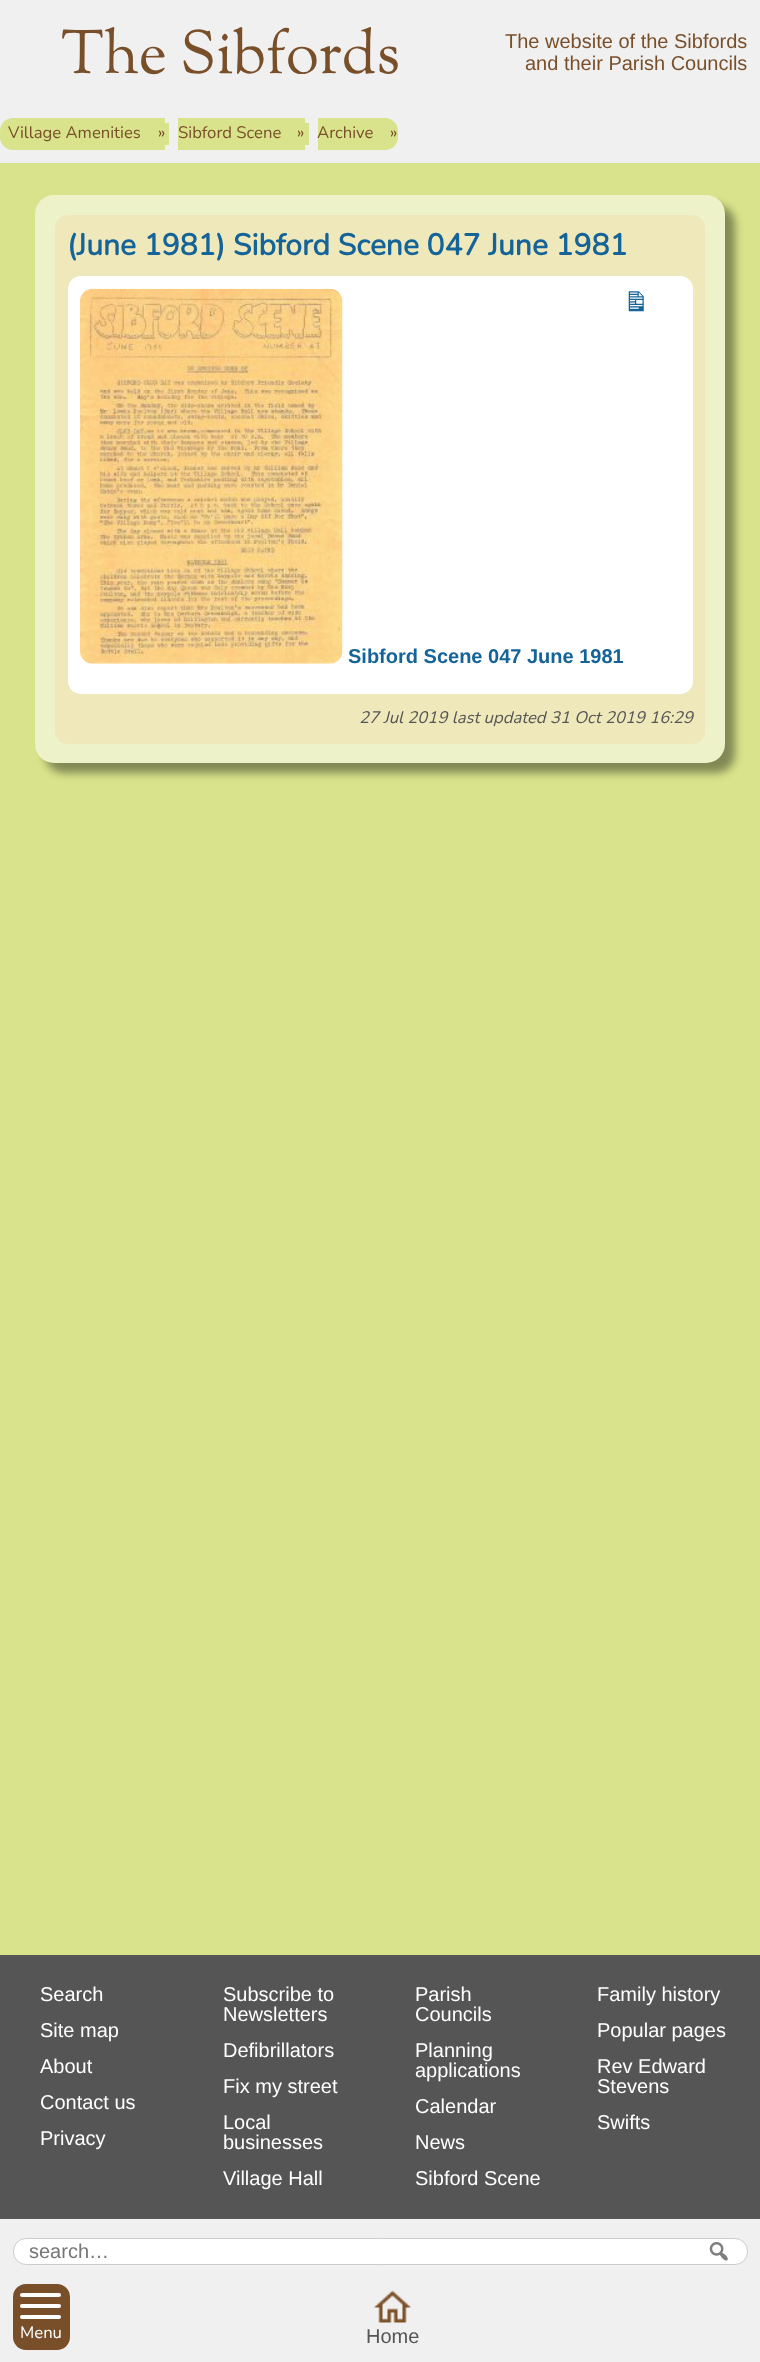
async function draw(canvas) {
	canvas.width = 760;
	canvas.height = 2362;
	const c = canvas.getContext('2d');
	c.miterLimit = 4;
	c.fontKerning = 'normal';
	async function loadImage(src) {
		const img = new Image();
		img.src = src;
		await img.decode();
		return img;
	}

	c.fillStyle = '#f0f0f0';
	c.fillRect(0, 0, 760, 2362);
	c.font = '60.75px Sorts Mill Goudy';
	c.fillStyle = '#794f29';
	c.fillText('The Sibfords', 61, 73);
	c.font = '20px Liberation Sans';
	c.fillText('The website of the Sibfords', 505, 48);
	c.fillText('and their Parish Councils', 525, 70);
	c.fillStyle = '#d8e38b';
	c.beginPath();
	c.roundRect(0, 118, 165, 32, [13, 0, 0, 13]);
	c.fill();
	for (const [x, y, w, h, color] of [
		[165, 123, 4, 22, '#d8e38b'],
		[178, 118, 127, 32, '#d8e38b'],
		[305, 123, 4, 22, '#d8e38b'],
	]) {
		c.fillStyle = color;
		c.fillRect(x, y, w, h);
	}
	c.beginPath();
	c.roundRect(318, 118, 80, 32, [0, 13, 13, 0]);
	c.fill();
	c.font = '200 16.7px Nunito';
	c.fillStyle = '#794f29';
	for (const [text, x, y] of [
		['Village Amenities', 8, 138],
		['»', 158, 138],
		['Sibford Scene', 178, 138],
		['»', 297, 138],
		['Archive', 317, 138],
		['»', 390, 138],
	]) {
		c.fillText(text, x, y);
	}
	c.fillStyle = '#d8e38b';
	c.fillRect(0, 163, 760, 1792);
	c.fillStyle = '#00000066';
	c.filter = 'blur(4px)';
	c.beginPath();
	c.roundRect(45, 205, 690, 568, 19);
	c.fill();
	c.filter = 'none';
	c.fillStyle = '#edf2c9';
	c.beginPath();
	c.roundRect(35, 195, 690, 568, 19);
	c.fill();
	c.fillStyle = '#efe8ba';
	c.beginPath();
	c.roundRect(55, 215, 650, 529, 13);
	c.fill();
	c.font = 'bold 30px Nunito';
	c.fillStyle = '#146499';
	c.fillText('(June 1981) Sibford Scene 047 June 1981', 67, 255);
	c.fillStyle = '#fff';
	c.beginPath();
	c.roundRect(68, 276, 625, 418, 13);
	c.fill();
	c.drawImage(await loadImage('img1.png'), 80, 288, 263, 376);
	c.drawImage(await loadImage('img2.png'), 628, 291, 16, 21);
	c.font = 'bold 20px Liberation Sans';
	c.fillStyle = '#146499';
	c.fillText('Sibford Scene 047 June 1981', 348, 663);
	c.font = 'italic 200 16.7px Nunito';
	c.fillStyle = '#555';
	c.fillText('27 Jul 2019 last updated 31 Oct 2019 16:29', 359, 723);
	c.fillRect(0, 1955, 760, 264);
	c.font = '20px Liberation Sans';
	c.fillStyle = '#fff';
	for (const [text, x, y] of [
		['Search', 40, 2001],
		['Site map', 40, 2037],
		['About', 40, 2073],
		['Contact us', 40, 2109],
		['Privacy', 40, 2145],
		['Subscribe to', 223, 2001],
		['Newsletters', 223, 2021],
		['Defibrillators', 223, 2057],
		['Fix my street', 223, 2093],
		['Local', 223, 2129],
		['businesses', 223, 2149],
		['Village Hall', 223, 2185],
		['Parish', 415, 2001],
		['Councils', 415, 2021],
		['Planning', 415, 2057],
		['applications', 415, 2077],
		['Calendar', 415, 2113],
		['News', 415, 2149],
		['Sibford Scene', 415, 2185],
		['Family history', 597, 2001],
		['Popular pages', 597, 2037],
		['Rev Edward', 597, 2073],
		['Stevens', 597, 2093],
		['Swifts', 597, 2129],
	]) {
		c.fillText(text, x, y);
	}
	c.beginPath();
	c.roundRect(13.5, 2238.5, 734, 26, 12.5);
	c.fill();
	c.strokeStyle = '#ccc';
	c.stroke();
	c.fillStyle = '#757575';
	c.fillText('search…', 29, 2258);
	c.drawImage(await loadImage('img3.png'), 709, 2242, 19, 19);
	c.fillStyle = '#794f29';
	c.beginPath();
	c.roundRect(13, 2284, 57, 66, 13);
	c.fill();
	c.fillStyle = '#fff';
	c.beginPath();
	c.roundRect(20, 2304, 41, 4, 2);
	c.fill();
	c.beginPath();
	c.roundRect(20, 2293, 41, 4, 2);
	c.fill();
	c.beginPath();
	c.roundRect(20, 2315, 41, 4, 2);
	c.fill();
	c.font = '200 16.7px Nunito';
	c.fillText('Menu', 20, 2338);
	c.drawImage(await loadImage('img4.png'), 373, 2290, 39, 33);
	c.font = '20px Liberation Sans';
	c.fillStyle = '#555';
	c.fillText('Home', 366, 2343);
}

draw(document.querySelector('canvas'));
